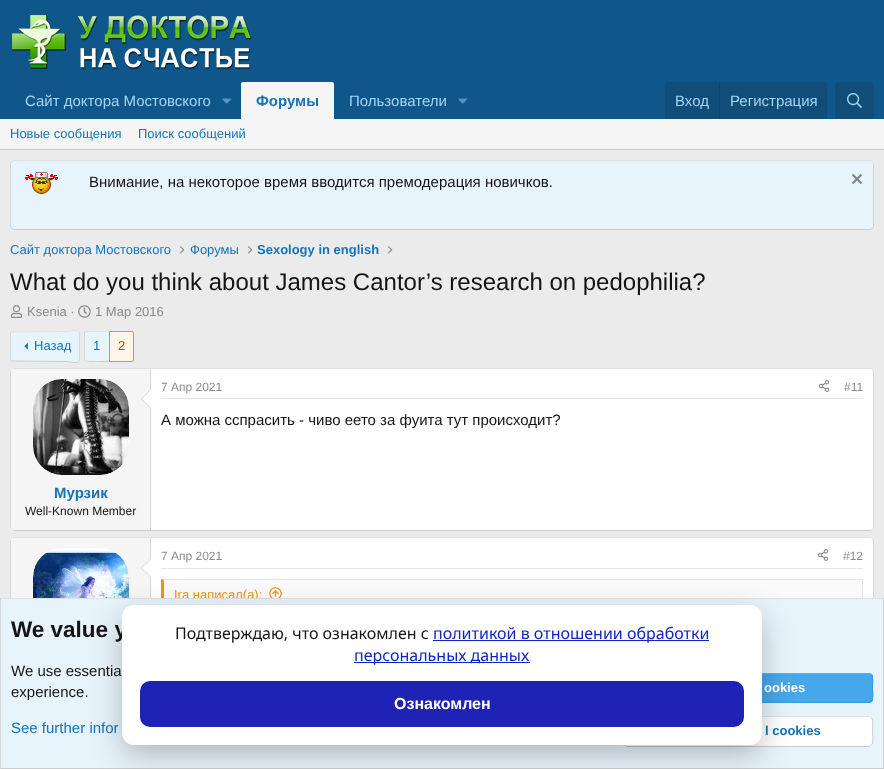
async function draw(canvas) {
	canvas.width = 884;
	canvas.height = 769;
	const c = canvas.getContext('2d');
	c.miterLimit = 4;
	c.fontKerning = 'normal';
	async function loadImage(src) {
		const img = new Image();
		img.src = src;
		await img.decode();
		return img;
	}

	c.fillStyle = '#ebebeb';
	c.fillRect(0, 0, 884, 769);
	c.fillStyle = '#0f578a';
	c.fillRect(0, 0, 884, 119);
	c.drawImage(await loadImage('img1.png'), 12, 15, 240, 54);
	c.font = '15px Liberation Sans';
	c.fillStyle = '#a3d4f5';
	c.fillText('Сайт доктора Мостовского', 25, 106);
	c.drawImage(await loadImage('img2.png'), 222, 98, 9, 6);
	c.fillStyle = '#f5f5f5';
	c.beginPath();
	c.roundRect(241, 82, 93, 37, [2, 2, 0, 0]);
	c.fill();
	c.font = 'bold 15px Liberation Sans';
	c.fillStyle = '#1474b8';
	c.fillText('Форумы', 256, 106);
	c.font = '15px Liberation Sans';
	c.fillStyle = '#a3d4f5';
	c.fillText('Пользователи', 349, 106);
	c.drawImage(await loadImage('img2.png'), 458, 98, 9, 6);
	c.fillStyle = '#104d78';
	c.beginPath();
	c.roundRect(665, 82, 162, 37, [4, 4, 0, 0]);
	c.fill();
	c.fillStyle = '#a3d4f5';
	c.fillText('Вход', 675, 106);
	c.fillStyle = '#114469';
	c.fillRect(719, 82, 1, 37);
	c.fillStyle = '#a3d4f5';
	c.fillText('Регистрация', 730, 106);
	c.fillStyle = '#104d78';
	c.beginPath();
	c.roundRect(835, 82, 39, 37, [4, 4, 0, 0]);
	c.fill();
	c.drawImage(await loadImage('img3.png'), 847, 93, 15, 15);
	c.fillStyle = '#f5f5f5';
	c.fillRect(0, 119, 884, 30);
	c.fillStyle = '#ccc';
	c.fillRect(0, 149, 884, 1);
	c.font = '13px Liberation Sans';
	c.fillStyle = '#1474b8';
	c.fillText('Новые сообщения', 10, 138);
	c.fillText('Поиск сообщений', 138, 138);
	c.fillStyle = '#e8f4fc';
	c.beginPath();
	c.roundRect(10, 160, 864, 70, 4);
	c.fill();
	c.beginPath();
	c.moveTo(11.5, 161.5);
	c.lineTo(14, 160.5);
	c.lineTo(870, 160.5);
	c.lineTo(872.5, 161.5);
	c.strokeStyle = '#e0e0e0';
	c.stroke();
	c.beginPath();
	c.moveTo(872.5, 161.5);
	c.lineTo(873.5, 163.5);
	c.lineTo(873.5, 226.5);
	c.lineTo(872.5, 228.5);
	c.strokeStyle = '#d6d6d6';
	c.stroke();
	c.beginPath();
	c.moveTo(872.5, 228.5);
	c.lineTo(870, 229.5);
	c.lineTo(14, 229.5);
	c.lineTo(11.5, 228.5);
	c.strokeStyle = '#ccc';
	c.stroke();
	c.beginPath();
	c.moveTo(11.5, 228.5);
	c.lineTo(10.5, 226.5);
	c.lineTo(10.5, 163.5);
	c.lineTo(11.5, 161.5);
	c.strokeStyle = '#d6d6d6';
	c.stroke();
	c.drawImage(await loadImage('img4.png'), 25, 172, 33, 22);
	c.font = '15px Liberation Sans';
	c.fillStyle = '#141414';
	c.fillText('Внимание, на некоторое время вводится премодерация новичков.', 89, 187);
	c.drawImage(await loadImage('img5.png'), 852, 174, 10, 10);
	c.font = '13px Liberation Sans';
	c.fillStyle = '#1474b8';
	c.fillText('Сайт доктора Мостовского', 10, 254);
	c.drawImage(await loadImage('img6.png'), 180, 246, 4, 8);
	c.fillText('Форумы', 190, 254);
	c.drawImage(await loadImage('img6.png'), 248, 246, 4, 8);
	c.font = 'bold 13px Liberation Sans';
	c.fillText('Sexology in english', 257, 254);
	c.drawImage(await loadImage('img7.png'), 388, 246, 5, 8);
	c.font = '24px Liberation Sans';
	c.fillStyle = '#141414';
	c.fillText('What do you think about James Cantor’s research on pedophilia?', 10, 290);
	c.drawImage(await loadImage('img8.png'), 10, 305, 13, 13);
	c.font = '13px Liberation Sans';
	c.fillStyle = '#8a8a8a';
	c.fillText('Ksenia ·', 27, 316);
	c.drawImage(await loadImage('img9.png'), 78, 305, 13, 13);
	c.fillText('1 Мар 2016', 95, 316);
	c.fillStyle = '#e8f4fc';
	c.beginPath();
	c.roundRect(10, 331, 70, 31, 2);
	c.fill();
	c.beginPath();
	c.moveTo(11, 332);
	c.lineTo(67, 331.5);
	c.bezierCurveTo(71, 331.5, 76, 329, 79, 332);
	c.strokeStyle = '#e0e0e0';
	c.stroke();
	c.beginPath();
	c.moveTo(79, 332);
	c.lineTo(79.5, 333);
	c.lineTo(79.5, 360);
	c.lineTo(79, 361);
	c.strokeStyle = '#d6d6d6';
	c.stroke();
	c.beginPath();
	c.moveTo(79, 361);
	c.bezierCurveTo(76, 364, 71, 361.5, 67, 361.5);
	c.lineTo(11, 361);
	c.strokeStyle = '#ccc';
	c.stroke();
	c.beginPath();
	c.moveTo(11, 361);
	c.lineTo(10.5, 360);
	c.lineTo(10.5, 333);
	c.lineTo(11, 332);
	c.strokeStyle = '#d6d6d6';
	c.stroke();
	c.drawImage(await loadImage('img10.png'), 24, 343, 4, 7);
	c.fillStyle = '#1474b8';
	c.fillText('Назад', 34, 350);
	c.fillStyle = '#e8f4fc';
	c.beginPath();
	c.roundRect(84, 331, 25, 31, [2, 0, 0, 2]);
	c.fill();
	c.fillStyle = '#e0e0e0';
	c.beginPath();
	c.moveTo(86, 331);
	c.lineTo(84.5, 331.5);
	c.lineTo(85.5, 332.5);
	c.bezierCurveTo(86, 331.5, 106.5, 332, 109, 332);
	c.lineTo(109, 331);
	c.closePath();
	c.fill();
	c.fillStyle = '#ccc';
	c.beginPath();
	c.moveTo(109, 362);
	c.bezierCurveTo(106, 362, 86, 362.5, 85, 361);
	c.lineTo(85.5, 360.5);
	c.bezierCurveTo(86, 361.5, 106.5, 361, 109, 361);
	c.closePath();
	c.fill();
	c.fillStyle = '#d6d6d6';
	c.beginPath();
	c.moveTo(84, 332.5);
	c.lineTo(84, 360.5);
	c.lineTo(85, 361);
	c.lineTo(85.5, 360.5);
	c.lineTo(85, 360);
	c.lineTo(85, 333);
	c.lineTo(85.5, 332.5);
	c.lineTo(84.5, 331.5);
	c.closePath();
	c.fill();
	c.fillStyle = '#1474b8';
	c.fillText('1', 93, 350);
	c.fillStyle = '#fef4e7';
	c.beginPath();
	c.roundRect(109.5, 331.5, 24, 30, [0, 1.5, 1.5, 0]);
	c.fill();
	c.strokeStyle = '#f2930d';
	c.stroke();
	c.fillStyle = '#915808';
	c.fillText('2', 118, 350);
	c.fillStyle = '#fff';
	c.beginPath();
	c.roundRect(10, 368, 864, 163, 4);
	c.fill();
	c.beginPath();
	c.moveTo(11.5, 369.5);
	c.lineTo(14, 368.5);
	c.lineTo(870, 368.5);
	c.lineTo(872.5, 369.5);
	c.strokeStyle = '#e0e0e0';
	c.stroke();
	c.beginPath();
	c.moveTo(872.5, 369.5);
	c.bezierCurveTo(873, 370, 873.5, 371, 873.5, 372);
	c.lineTo(873.5, 527);
	c.bezierCurveTo(873.5, 528, 873, 529, 872.5, 529.5);
	c.strokeStyle = '#d6d6d6';
	c.stroke();
	c.beginPath();
	c.moveTo(872.5, 529.5);
	c.lineTo(870, 530.5);
	c.lineTo(14, 530.5);
	c.lineTo(11.5, 529.5);
	c.strokeStyle = '#ccc';
	c.stroke();
	c.beginPath();
	c.moveTo(11.5, 529.5);
	c.bezierCurveTo(11, 529, 10.5, 528, 10.5, 527);
	c.lineTo(10.5, 372);
	c.bezierCurveTo(10.5, 371, 11, 370, 11.5, 369.5);
	c.strokeStyle = '#d6d6d6';
	c.stroke();
	c.fillStyle = '#e6e6e6';
	c.fillRect(161, 398, 702, 1);
	c.font = '12px Liberation Sans';
	c.fillStyle = '#8a8a8a';
	c.fillText('7 Апр 2021', 161, 391);
	c.drawImage(await loadImage('img11.png'), 818, 380, 12, 12);
	c.fillText('#11', 844, 391);
	c.font = '15px Liberation Sans';
	c.fillStyle = '#141414';
	c.fillText('А можна сспрасить - чиво еето за фуита тут происходит?', 161, 425);
	c.fillStyle = '#f5f5f5';
	c.beginPath();
	c.roundRect(11, 369, 140, 161, [3, 0, 0, 3]);
	c.fill();
	c.fillStyle = '#d6d6d6';
	c.fillRect(150, 369, 1, 161);
	c.fillStyle = '#fff';
	c.beginPath();
	c.roundRect(33, 379, 96, 96, 29);
	c.fill();
	c.drawImage(await loadImage('img12.png'), 33, 379, 96, 96);
	c.fillStyle = '#d6d6d6';
	c.beginPath();
	c.moveTo(151, 389);
	c.lineTo(151, 409);
	c.lineTo(141, 399);
	c.closePath();
	c.fill();
	c.fillStyle = '#fff';
	c.beginPath();
	c.moveTo(151, 390);
	c.lineTo(151, 408);
	c.lineTo(142, 399);
	c.closePath();
	c.fill();
	c.font = 'bold 15px Liberation Sans';
	c.fillStyle = '#1474b8';
	c.fillText('Мурзик', 54, 498);
	c.font = '12px Liberation Sans';
	c.fillStyle = '#141414';
	c.fillText('Well-Known Member', 25, 515);
	c.fillStyle = '#fff';
	c.beginPath();
	c.roundRect(10, 537, 864, 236, 4);
	c.fill();
	c.beginPath();
	c.moveTo(11.5, 538.5);
	c.lineTo(14, 537.5);
	c.lineTo(870, 537.5);
	c.lineTo(872.5, 538.5);
	c.strokeStyle = '#e0e0e0';
	c.stroke();
	c.beginPath();
	c.moveTo(872.5, 538.5);
	c.lineTo(873.5, 541);
	c.lineTo(873.5, 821);
	c.lineTo(872.5, 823.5);
	c.strokeStyle = '#d6d6d6';
	c.stroke();
	c.beginPath();
	c.moveTo(11.5, 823.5);
	c.lineTo(10.5, 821);
	c.lineTo(10.5, 541);
	c.lineTo(11.5, 538.5);
	c.stroke();
	c.fillStyle = '#f5f5f5';
	c.beginPath();
	c.moveTo(14, 538);
	c.lineTo(151, 538);
	c.lineTo(151, 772);
	c.lineTo(14, 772);
	c.bezierCurveTo(12.5, 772, 11, 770.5, 11, 769);
	c.lineTo(11, 541);
	c.bezierCurveTo(11, 539.5, 12.5, 538, 14, 538);
	c.closePath();
	c.fill();
	c.fillStyle = '#d6d6d6';
	c.fillRect(150, 538, 1, 60);
	c.fillStyle = '#fff';
	c.beginPath();
	c.roundRect(33, 548, 96, 96, 29);
	c.fill();
	c.drawImage(await loadImage('img13.png'), 33, 550, 96, 48);
	c.fillStyle = '#d6d6d6';
	c.beginPath();
	c.moveTo(151, 558);
	c.lineTo(151, 578);
	c.lineTo(141, 568);
	c.closePath();
	c.fill();
	c.fillStyle = '#fff';
	c.beginPath();
	c.moveTo(151, 559);
	c.lineTo(151, 577);
	c.lineTo(142, 568);
	c.closePath();
	c.fill();
	c.fillStyle = '#e6e6e6';
	c.fillRect(161, 568, 702, 1);
	c.fillStyle = '#8a8a8a';
	c.fillText('7 Апр 2021', 161, 560);
	c.drawImage(await loadImage('img11.png'), 817, 549, 12, 12);
	c.fillText('#12', 843, 560);
	c.fillStyle = '#e6e6e6';
	c.beginPath();
	c.moveTo(161, 579);
	c.lineTo(863, 579);
	c.lineTo(862, 580);
	c.lineTo(164, 580);
	c.closePath();
	c.fill();
	c.fillRect(862, 579, 1, 19);
	c.fillStyle = '#f2930d';
	c.beginPath();
	c.moveTo(161, 745);
	c.lineTo(161, 579);
	c.lineTo(164, 580);
	c.lineTo(164, 744);
	c.closePath();
	c.fill();
	c.fillStyle = '#fafafa';
	c.fillRect(164, 580, 698, 18);
	c.font = '13px Liberation Sans';
	c.fillStyle = '#f2930d';
	c.fillText('Ira написал(а):', 174, 599);
	c.drawImage(await loadImage('img14.png'), 269, 587, 13, 11);
	for (const [x, y, w, h, color] of [
		[1, 599, 882, 169, '#e8f4fc'],
		[0, 598, 884, 1, '#e0e0e0'],
		[883, 598, 1, 171, '#d6d6d6'],
		[0, 768, 884, 1, '#ccc'],
		[0, 598, 1, 171, '#d6d6d6'],
	]) {
		c.fillStyle = color;
		c.fillRect(x, y, w, h);
	}
	c.font = 'bold 22.5px Liberation Sans';
	c.fillStyle = '#141414';
	c.fillText('We value y', 11, 637);
	c.font = '15px Liberation Sans';
	c.fillText('We use essentia', 11, 676);
	c.fillText('experience.', 11, 697);
	c.fillStyle = '#1474b8';
	c.fillText('See further infor', 11, 733);
	c.fillStyle = '#47a7eb';
	c.beginPath();
	c.roundRect(623, 673, 250, 30, 4);
	c.fill();
	c.beginPath();
	c.moveTo(871.5, 674.5);
	c.bezierCurveTo(873.5, 676.5, 872.5, 685, 872.5, 688);
	c.bezierCurveTo(872.5, 691, 874, 699.5, 871, 701.5);
	c.lineTo(869.5, 702.5);
	c.lineTo(627, 702.5);
	c.lineTo(624.5, 701.5);
	c.strokeStyle = '#309ce8';
	c.stroke();
	c.beginPath();
	c.moveTo(624.5, 701.5);
	c.bezierCurveTo(622.5, 699.5, 623.5, 691, 623.5, 688);
	c.bezierCurveTo(623.5, 685, 622, 676.5, 625, 674.5);
	c.lineTo(626.5, 673.5);
	c.lineTo(869, 673.5);
	c.lineTo(871.5, 674.5);
	c.strokeStyle = '#5eb2ed';
	c.stroke();
	c.font = 'bold 13px Liberation Sans';
	c.fillStyle = '#fff';
	c.fillText('ookies', 764, 692);
	c.beginPath();
	c.roundRect(623, 716, 250, 31, 4);
	c.fill();
	c.beginPath();
	c.moveTo(871.5, 717.5);
	c.bezierCurveTo(873.5, 720, 872.5, 728.5, 872.5, 731.5);
	c.bezierCurveTo(872.5, 734.5, 874, 743.5, 871, 745.5);
	c.lineTo(869.5, 746.5);
	c.lineTo(627, 746.5);
	c.lineTo(624.5, 745.5);
	c.strokeStyle = '#c9c9c9';
	c.stroke();
	c.beginPath();
	c.moveTo(624.5, 745.5);
	c.bezierCurveTo(622.5, 743, 623.5, 734.5, 623.5, 731.5);
	c.bezierCurveTo(623.5, 728.5, 622, 719.5, 625, 717.5);
	c.lineTo(626.5, 716.5);
	c.lineTo(869, 716.5);
	c.lineTo(871.5, 717.5);
	c.strokeStyle = '#e3e3e3';
	c.stroke();
	c.fillStyle = '#1474b8';
	c.fillText('l cookies', 765, 735);
	c.fillStyle = '#00000040';
	c.filter = 'blur(15px)';
	c.beginPath();
	c.roundRect(122, 615, 640, 140, 12);
	c.fill();
	c.filter = 'none';
	c.fillStyle = '#fff';
	c.beginPath();
	c.roundRect(122, 605, 640, 140, 12);
	c.fill();
	c.font = '16px Noto Sans';
	c.fillStyle = '#141414';
	c.fillText('Подтверждаю, что ознакомлен с', 175, 639);
	c.fillStyle = '#1024c6';
	c.fillRect(433, 640, 276, 1);
	c.fillText('политикой в отношении обработки', 433, 639);
	c.fillRect(354, 662, 176, 1);
	c.fillText('персональных данных', 354, 661);
	c.fillStyle = '#1e23b6';
	c.beginPath();
	c.roundRect(140, 681, 604, 46, 10);
	c.fill();
	c.font = 'bold 16px Liberation Sans';
	c.fillStyle = '#fff';
	c.fillText('Ознакомлен', 394, 709);
}

draw(document.querySelector('canvas'));
